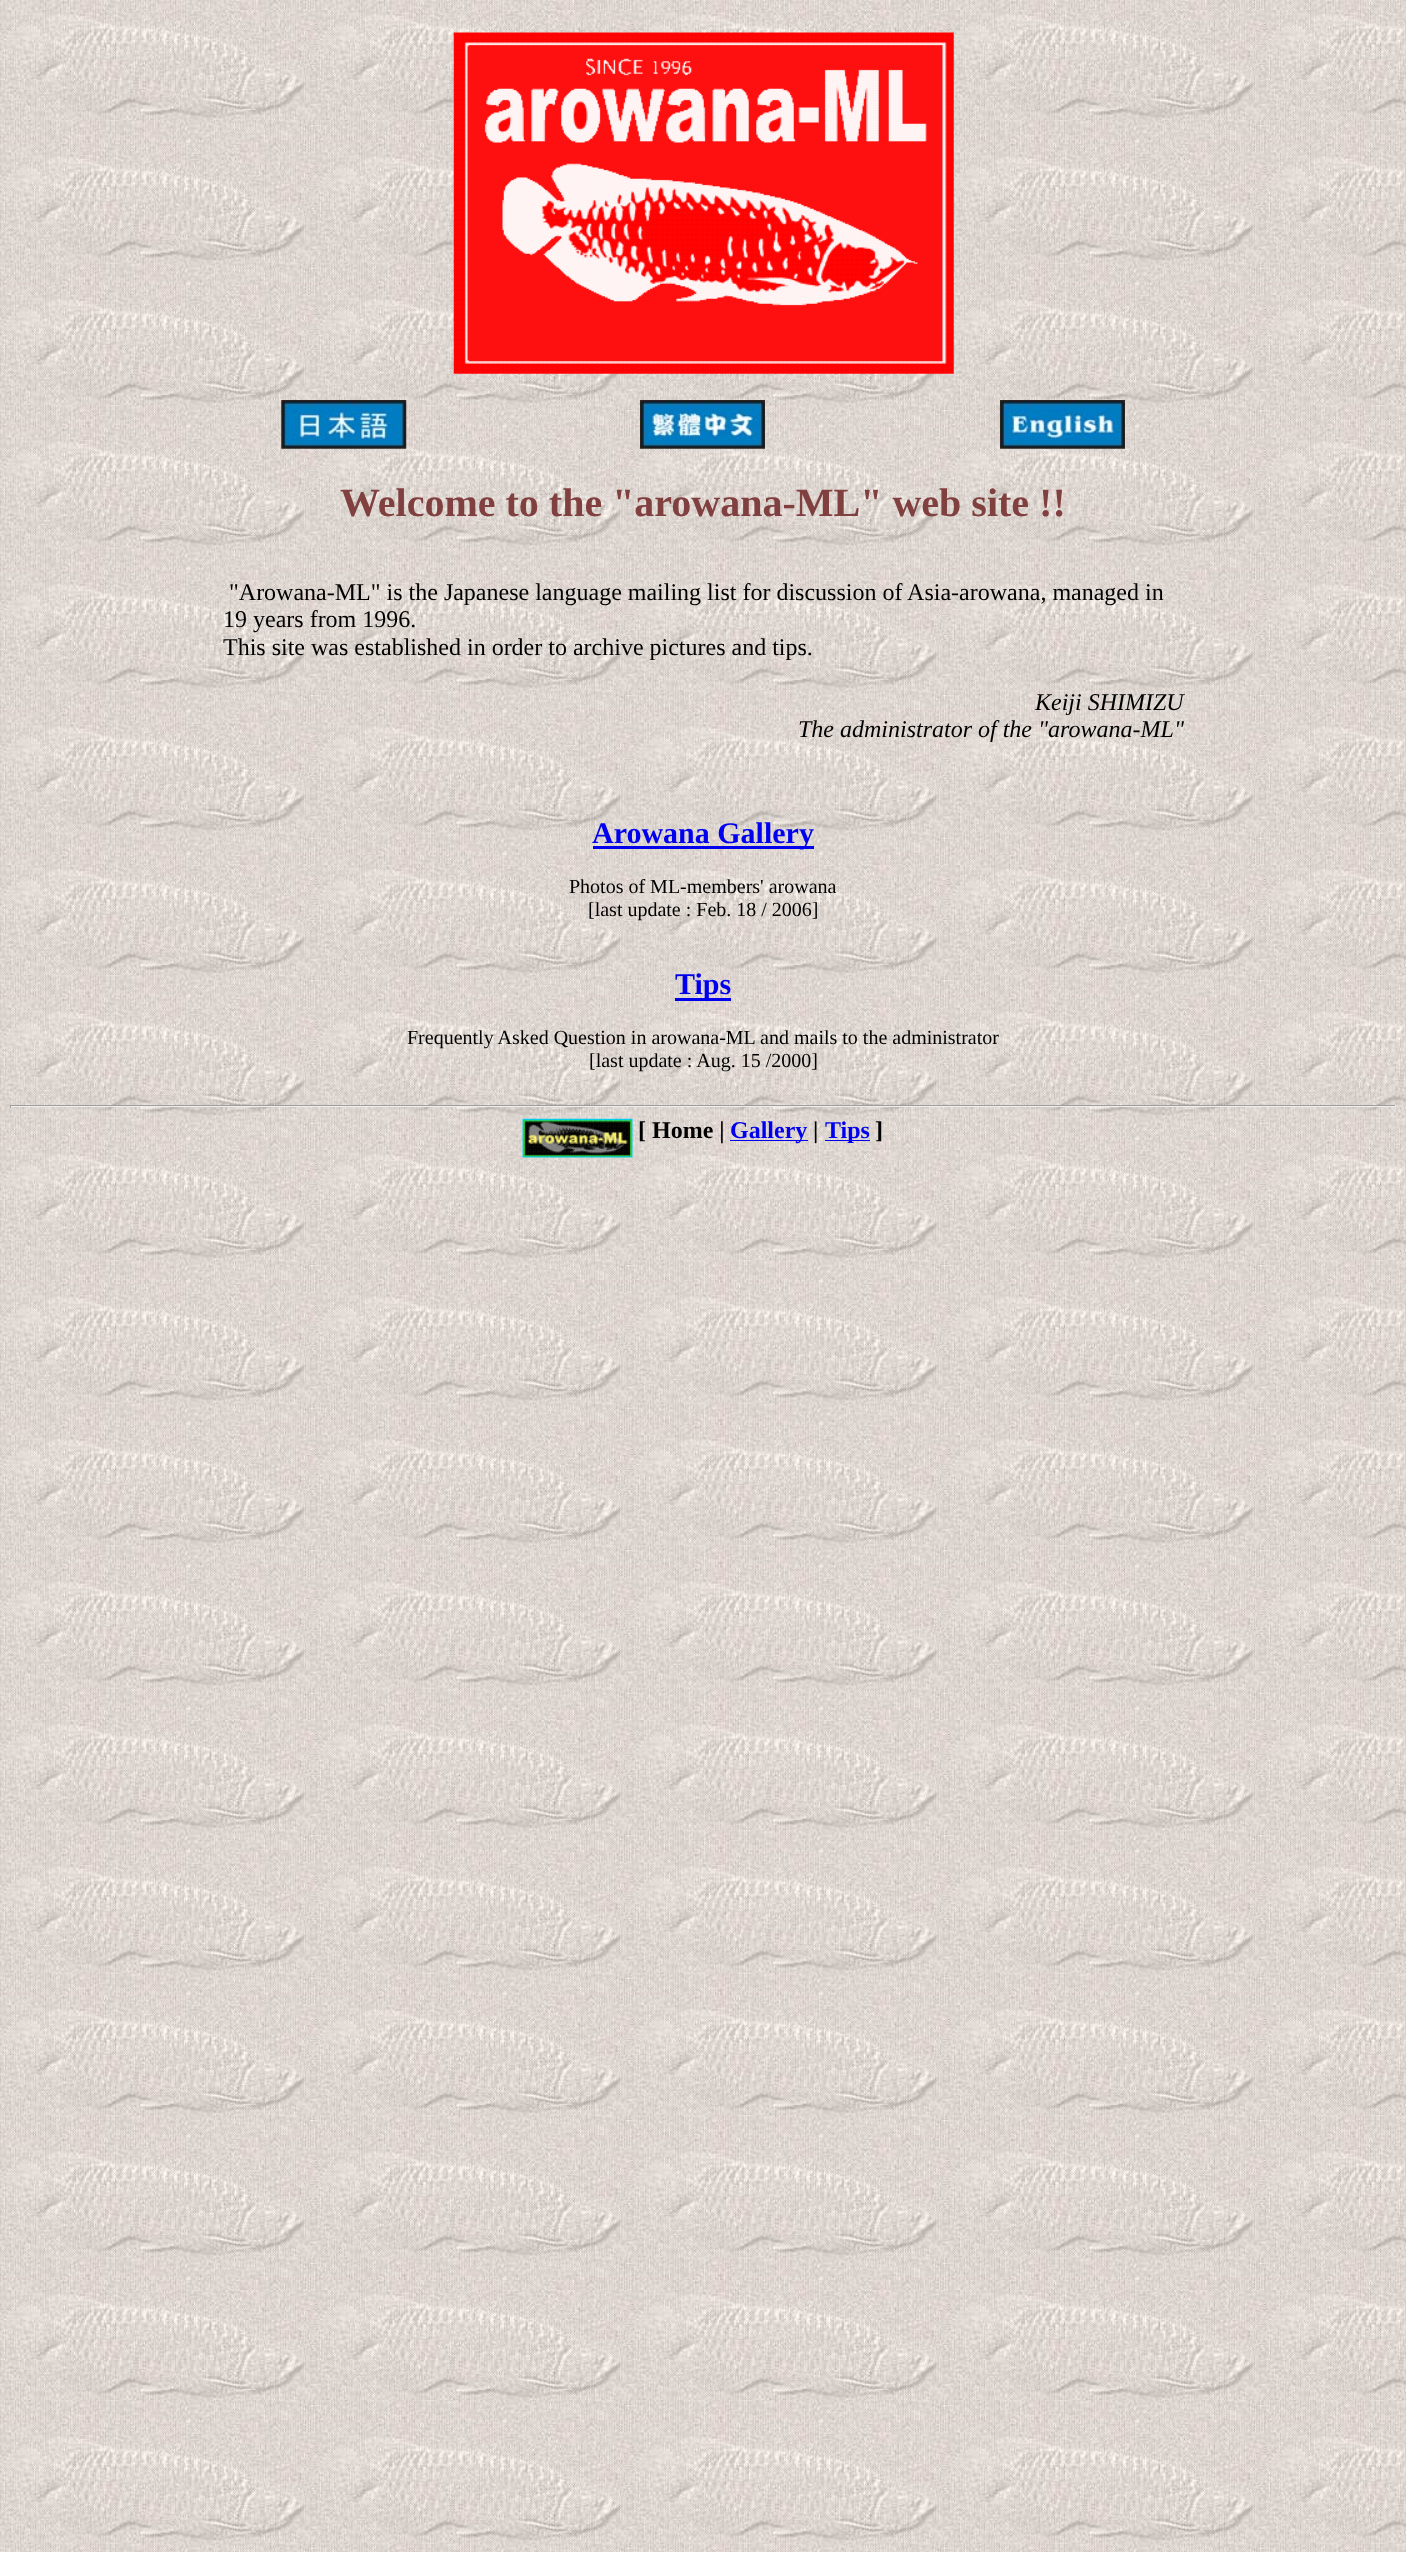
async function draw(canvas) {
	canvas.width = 1406;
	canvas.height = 2552;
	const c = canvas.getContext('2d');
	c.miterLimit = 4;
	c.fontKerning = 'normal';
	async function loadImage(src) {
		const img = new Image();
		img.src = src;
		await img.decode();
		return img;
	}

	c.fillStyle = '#fff';
	c.fillRect(0, 0, 1406, 2552);
	c.drawImage(await loadImage('img1.png'), 0, 0, 1406, 2552);
	c.drawImage(await loadImage('img2.png'), 453, 32, 501, 342);
	c.drawImage(await loadImage('img3.png'), 281, 400, 126, 49);
	c.drawImage(await loadImage('img4.png'), 640, 400, 125, 49);
	c.drawImage(await loadImage('img5.png'), 1000, 400, 125, 49);
	c.font = 'bold 40px Liberation Serif';
	c.fillStyle = '#804040';
	c.fillText('Welcome to the "arowana-ML" web site !!', 340, 516);
	c.font = '24px Liberation Serif';
	c.fillStyle = '#000';
	for (const [text, x, y] of [
		['"Arowana-ML" is the Japanese language mailing list for discussion of Asia-arowana, managed in', 229, 600],
		['19 years from 1996.', 223, 627],
		['This site was established in order to archive pictures and tips.', 223, 655],
	]) {
		c.fillText(text, x, y);
	}
	c.font = 'italic 24px Liberation Serif';
	c.fillText('Keiji SHIMIZU', 1035, 710);
	c.fillText('The administrator of the "arowana-ML"', 798, 737);
	c.fillStyle = '#00e';
	c.fillRect(593, 846, 221, 3);
	c.font = 'bold 30px Liberation Serif';
	c.fillText('Arowana Gallery', 592, 843);
	c.font = '20px Liberation Serif';
	c.fillStyle = '#000';
	c.fillText('Photos of ML-members\' arowana', 569, 893);
	c.fillText('[last update : Feb. 18 / 2006]', 588, 916);
	c.fillStyle = '#00e';
	c.fillRect(675, 998, 56, 3);
	c.font = 'bold 30px Liberation Serif';
	c.fillText('Tips', 675, 994);
	c.font = '20px Liberation Serif';
	c.fillStyle = '#000';
	c.fillText('Frequently Asked Question in arowana-ML and mails to the administrator', 407, 1044);
	c.fillText('[last update : Aug. 15 /2000]', 589, 1067);
	for (const [x, y, w, h, color] of [
		[10, 1105, 1386, 1, '#9f9f9f'],
		[1395, 1105, 1, 3, '#eee'],
		[10, 1106, 1386, 1, '#eee'],
		[10, 1105, 1, 3, '#9f9f9f'],
	]) {
		c.fillStyle = color;
		c.fillRect(x, y, w, h);
	}
	c.drawImage(await loadImage('img6.png'), 522, 1118, 111, 40);
	c.font = 'bold 24px Liberation Serif';
	c.fillStyle = '#000';
	c.fillText('[ Home |', 638, 1138);
	c.fillStyle = '#00e';
	c.fillRect(730, 1140, 78, 1);
	c.fillText('Gallery', 730, 1138);
	c.fillStyle = '#000';
	c.fillText('|', 813, 1138);
	c.fillStyle = '#00e';
	c.fillRect(825, 1140, 45, 1);
	c.fillText('Tips', 825, 1138);
	c.fillStyle = '#000';
	c.fillText(']', 875, 1138);
}

draw(document.querySelector('canvas'));
